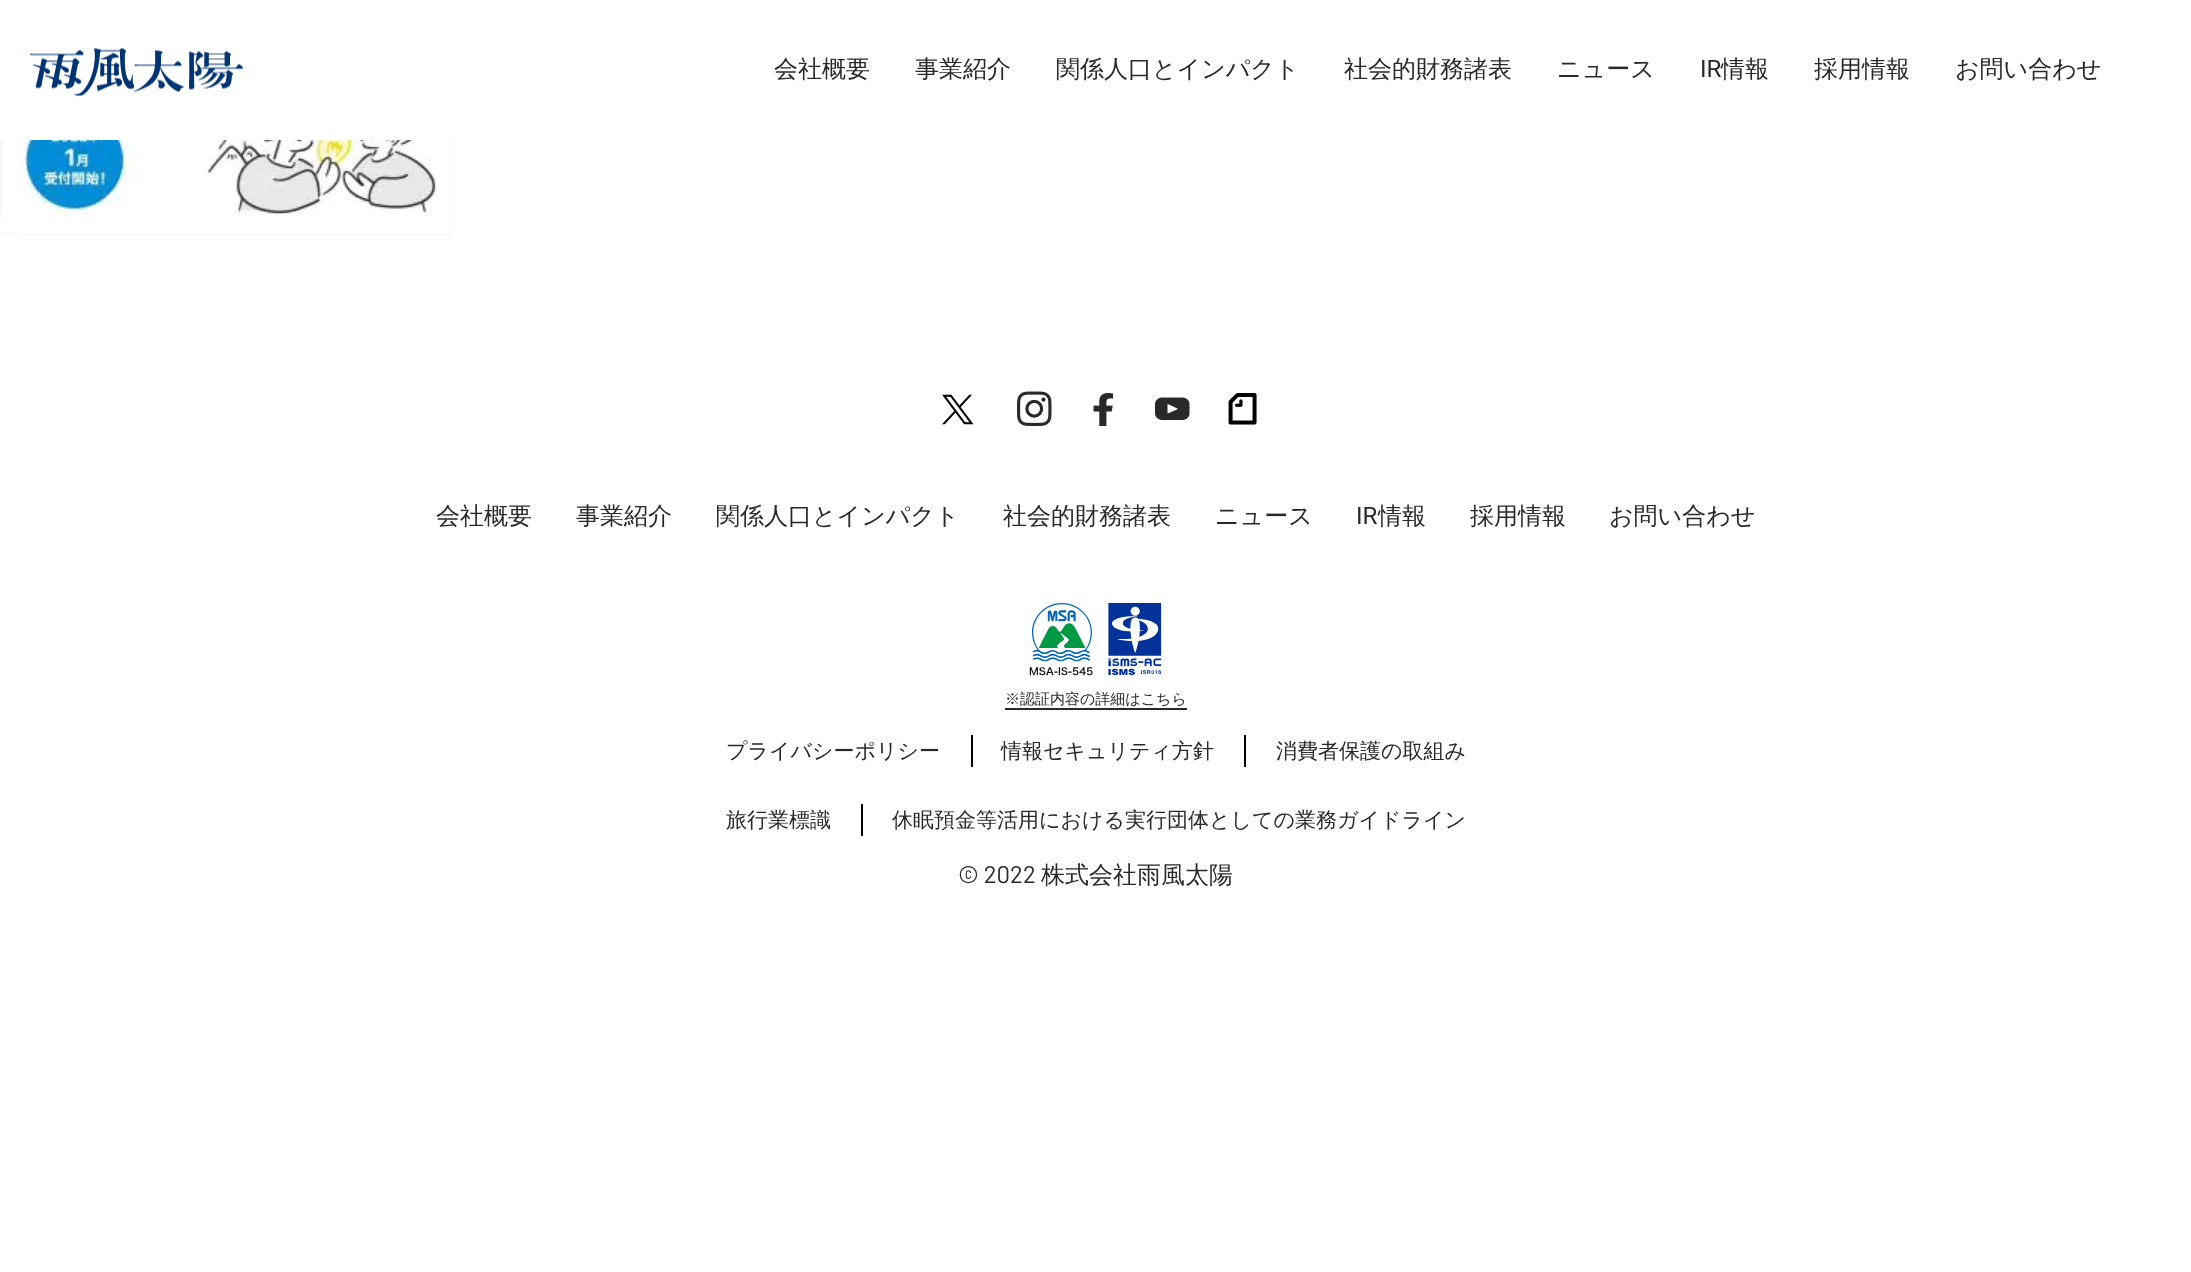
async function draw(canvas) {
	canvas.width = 2191;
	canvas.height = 1272;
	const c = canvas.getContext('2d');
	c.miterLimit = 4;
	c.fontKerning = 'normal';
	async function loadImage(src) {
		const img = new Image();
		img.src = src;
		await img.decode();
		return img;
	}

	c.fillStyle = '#fff';
	c.fillRect(0, 0, 2191, 1272);
	c.drawImage(await loadImage('img1.png'), 30, 48, 213, 49);
	c.font = '500 24px WenQuanYi Zen Hei';
	c.fillStyle = '#292929';
	for (const [text, x, y] of [
		['会社概要', 774, 77],
		['事業紹介', 915, 77],
		['関係人口とインパクト', 1056, 77],
		['社会的財務諸表', 1344, 77],
		['ニュース', 1557, 77],
	]) {
		c.fillText(text, x, y);
	}
	c.font = '24px Roboto';
	c.fillText('IR', 1700, 77);
	c.font = '500 24px WenQuanYi Zen Hei';
	for (const [text, x, y] of [
		['情報', 1721, 77],
		['採用情報', 1814, 77],
		['お問い合わせ', 1955, 77],
	]) {
		c.fillText(text, x, y);
	}
	c.drawImage(await loadImage('img2.png'), 0, 140, 450, 96);
	c.drawImage(await loadImage('img3.png'), 942, 394, 32, 31);
	c.drawImage(await loadImage('img4.png'), 1017, 391, 35, 35);
	c.drawImage(await loadImage('img5.png'), 1093, 393, 20, 33);
	c.drawImage(await loadImage('img6.png'), 1155, 397, 35, 23);
	c.drawImage(await loadImage('img7.png'), 1228, 393, 29, 32);
	for (const [text, x, y] of [
		['会社概要', 436, 524],
		['事業紹介', 576, 524],
		['関係人口とインパクト', 716, 524],
		['社会的財務諸表', 1003, 524],
		['ニュース', 1215, 524],
	]) {
		c.fillText(text, x, y);
	}
	c.font = '24px Roboto';
	c.fillText('IR', 1356, 524);
	c.font = '500 24px WenQuanYi Zen Hei';
	for (const [text, x, y] of [
		['情報', 1378, 524],
		['採用情報', 1470, 524],
		['お問い合わせ', 1609, 524],
	]) {
		c.fillText(text, x, y);
	}
	c.drawImage(await loadImage('img8.png'), 1029, 603, 133, 73);
	c.font = '500 15px WenQuanYi Zen Hei';
	c.fillText('※認証内容の詳細はこちら', 1005, 704);
	c.fillRect(1005, 708, 182, 2);
	c.fillStyle = '#000';
	c.fillRect(971, 735, 2, 32);
	c.font = '500 21px WenQuanYi Zen Hei';
	c.fillStyle = '#292929';
	c.fillText('プライバシーポリシー', 726, 758);
	c.fillStyle = '#000';
	c.fillRect(1244, 735, 2, 32);
	c.fillStyle = '#292929';
	c.fillText('情報セキュリティ方針', 1001, 758);
	c.fillText('消費者保護の取組み', 1276, 758);
	c.fillStyle = '#000';
	c.fillRect(861, 804, 2, 32);
	c.fillStyle = '#292929';
	c.fillText('旅行業標識', 726, 827);
	c.fillText('休眠預金等活用における実行団体としての業務ガイドライン', 892, 827);
	c.font = '24px Barlow';
	c.fillText('© 2022', 958, 883);
	c.font = '500 24px WenQuanYi Zen Hei';
	c.fillText('株式会社雨風太陽', 1041, 883);
}

draw(document.querySelector('canvas'));
